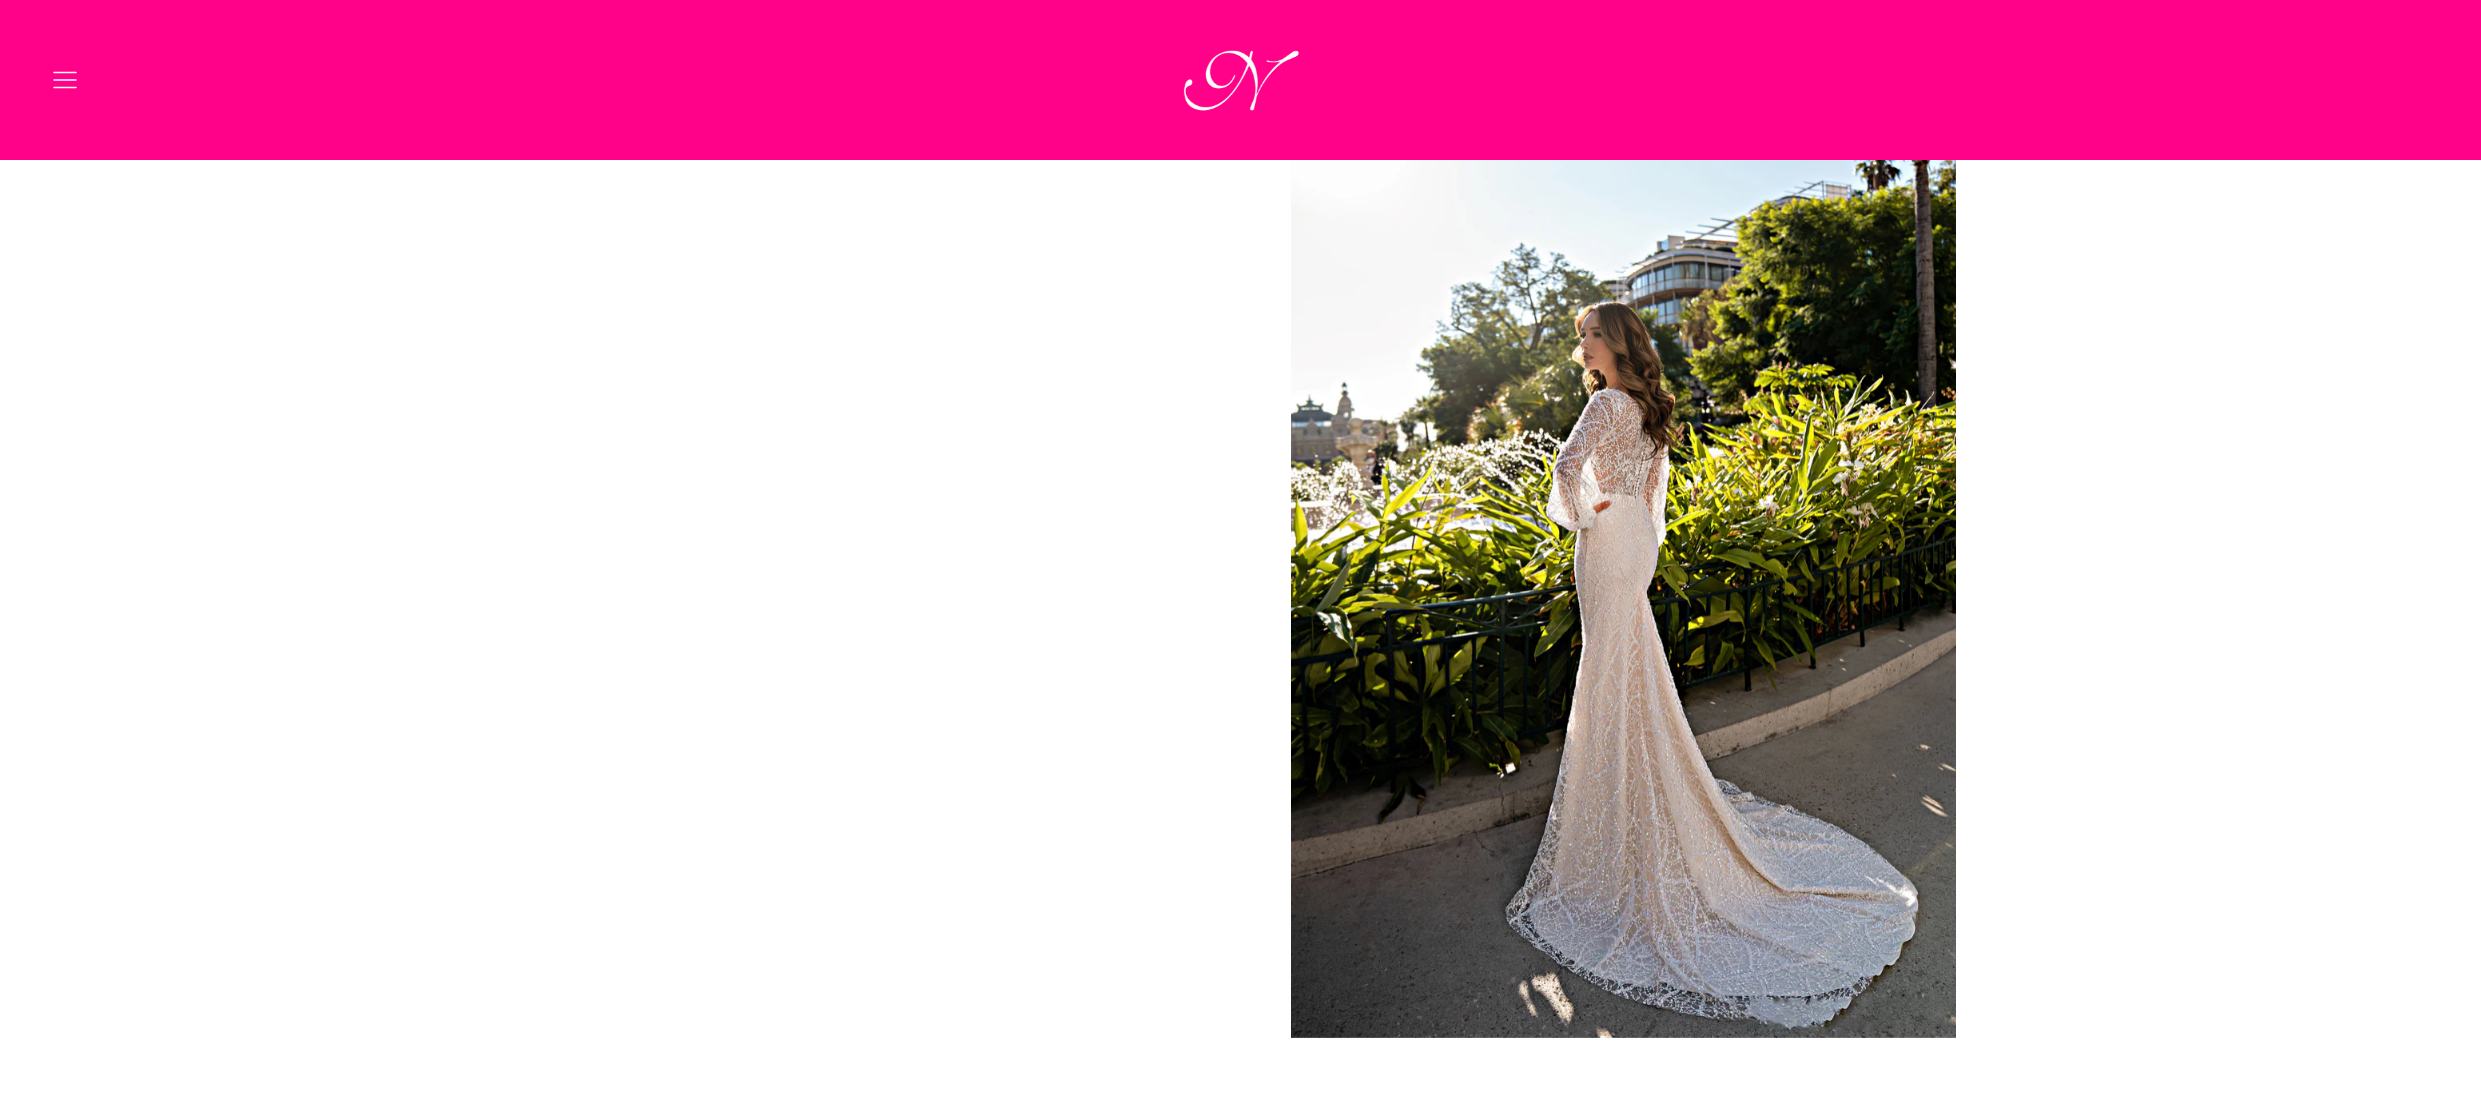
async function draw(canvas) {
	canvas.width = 2481;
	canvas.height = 1113;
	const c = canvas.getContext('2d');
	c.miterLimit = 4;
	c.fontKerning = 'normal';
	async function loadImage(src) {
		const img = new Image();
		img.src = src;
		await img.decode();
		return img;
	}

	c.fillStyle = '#fff';
	c.fillRect(0, 0, 2481, 1113);
	c.fillStyle = '#ff0289';
	c.fillRect(0, 0, 2481, 160);
	c.beginPath();
	c.moveTo(54, 80);
	c.lineTo(76, 80);
	c.moveTo(54, 72.5);
	c.lineTo(76, 72.5);
	c.moveTo(54, 87.5);
	c.lineTo(76, 87.5);
	c.strokeStyle = '#fff';
	c.lineWidth = 1.5;
	c.lineCap = 'round';
	c.lineJoin = 'round';
	c.stroke();
	c.drawImage(await loadImage('img1.png'), 1183, 50, 116, 61);
	c.drawImage(await loadImage('img2.png'), 1291, 160, 665, 878);
}

draw(document.querySelector('canvas'));
